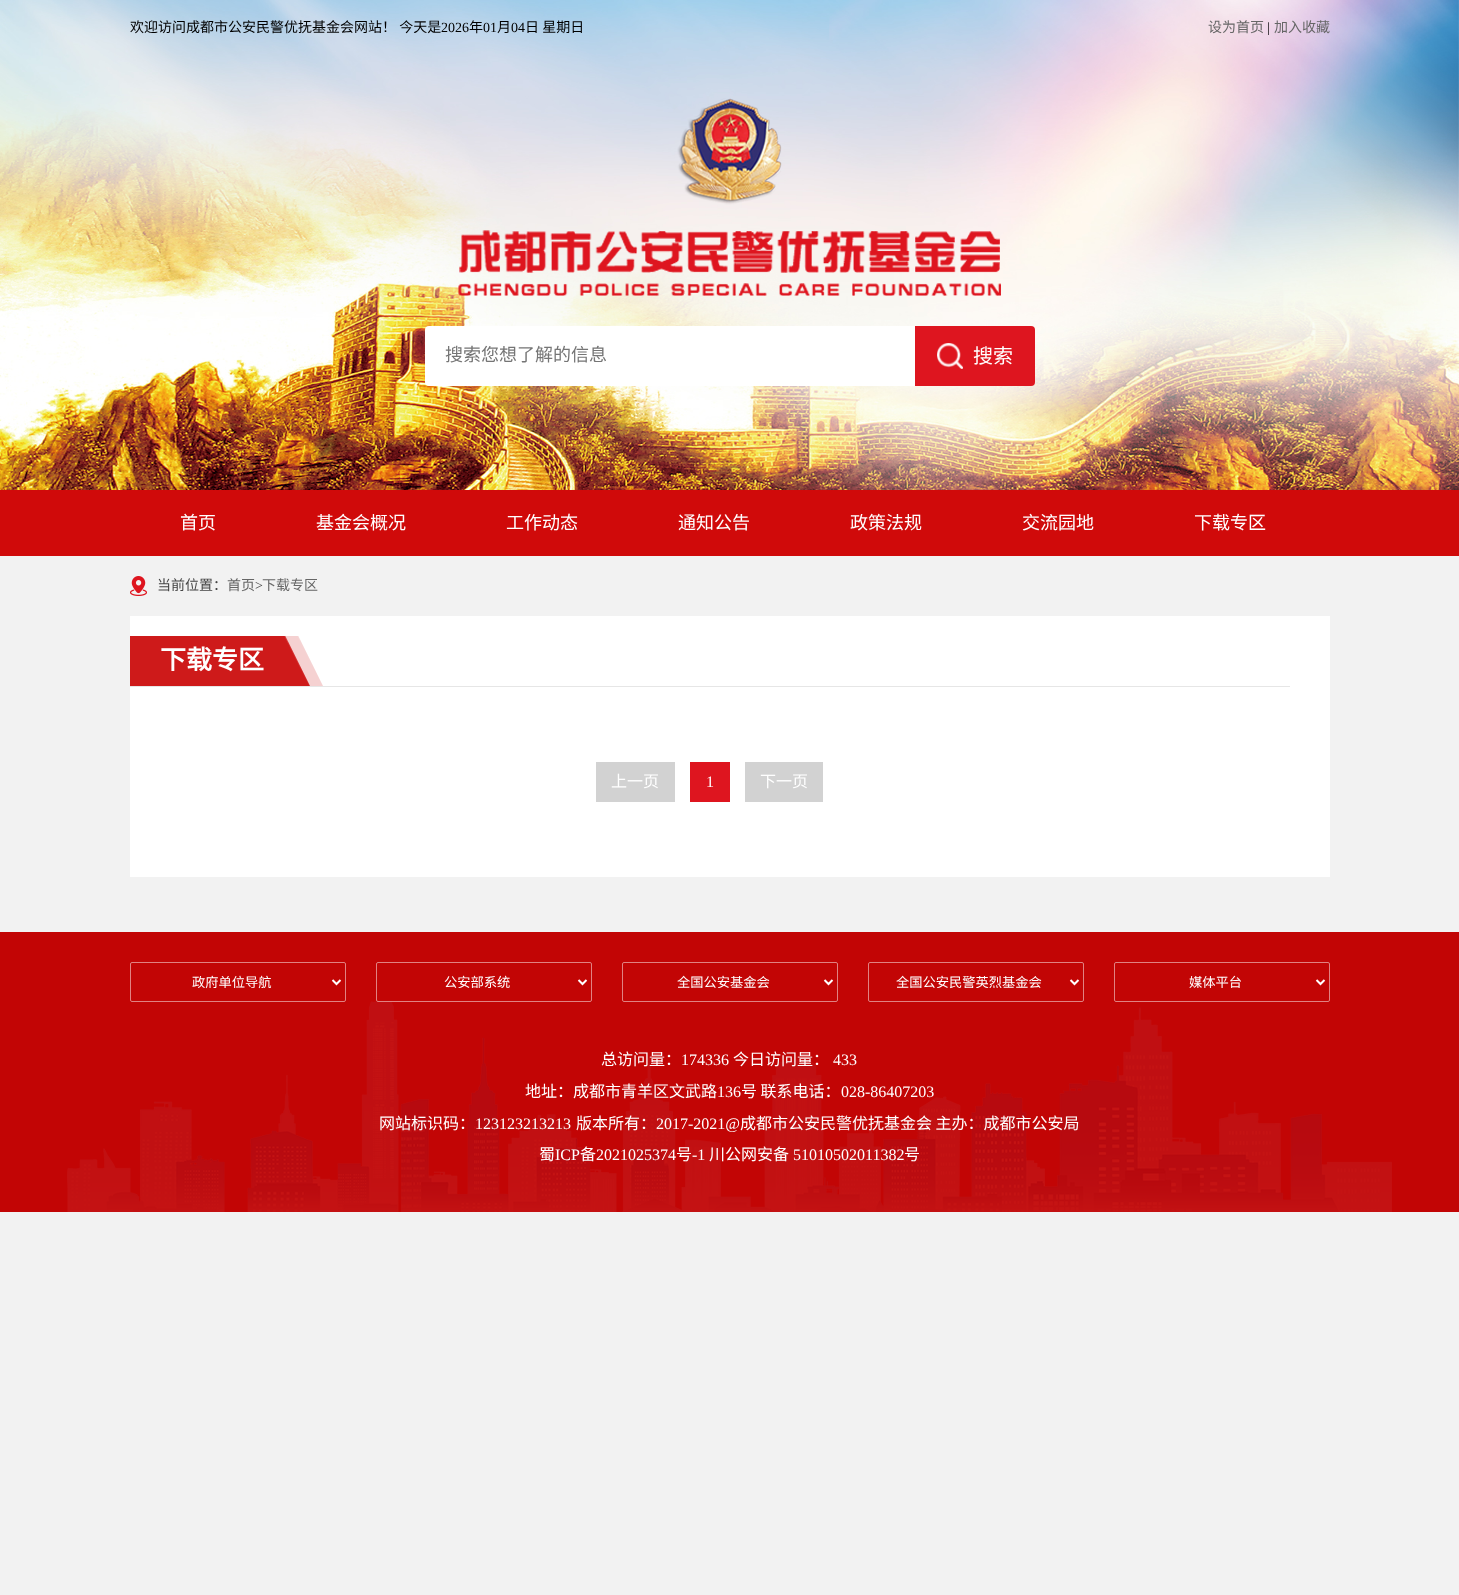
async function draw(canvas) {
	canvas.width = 1459;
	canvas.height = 1595;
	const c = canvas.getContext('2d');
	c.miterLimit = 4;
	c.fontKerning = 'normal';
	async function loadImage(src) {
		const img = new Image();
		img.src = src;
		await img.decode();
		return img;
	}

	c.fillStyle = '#f2f2f2';
	c.fillRect(0, 0, 1459, 1595);
	c.drawImage(await loadImage('img1.png'), 0, 0, 1459, 490);
	c.font = '14px Noto Sans CJK SC';
	c.fillStyle = '#000';
	c.fillText('欢迎访问成都市公安民警优抚基金会网站！ 今天是', 130, 32);
	c.font = '14px Liberation Serif';
	c.fillText('2026', 441, 32);
	c.font = '14px Noto Sans CJK SC';
	c.fillText('年', 469, 32);
	c.font = '14px Liberation Serif';
	c.fillText('01', 483, 32);
	c.font = '14px Noto Sans CJK SC';
	c.fillText('月', 497, 32);
	c.font = '14px Liberation Serif';
	c.fillText('04', 511, 32);
	c.font = '14px Noto Sans CJK SC';
	c.fillText('日 星期日', 525, 32);
	c.fillStyle = '#666';
	c.fillText('设为首页', 1208, 32);
	c.font = '14px Liberation Serif';
	c.fillStyle = '#000';
	c.fillText('|', 1267, 32);
	c.font = '14px Noto Sans CJK SC';
	c.fillStyle = '#666';
	c.fillText('加入收藏', 1274, 32);
	c.drawImage(await loadImage('img2.png'), 458, 98, 543, 198);
	c.fillStyle = '#fff';
	c.beginPath();
	c.roundRect(425, 326, 490, 60, [4, 0, 0, 4]);
	c.fill();
	c.font = '18px Noto Sans CJK SC';
	c.fillStyle = '#757575';
	c.fillText('搜索您想了解的信息', 445, 361);
	c.fillStyle = '#de151f';
	c.beginPath();
	c.roundRect(915, 326, 120, 60, [0, 4, 4, 0]);
	c.fill();
	c.drawImage(await loadImage('img3.png'), 937, 343, 26, 26);
	c.font = '20px Noto Sans CJK SC';
	c.fillStyle = '#fff';
	c.fillText('搜索', 973, 363);
	c.fillStyle = '#d00a0a';
	c.fillRect(0, 490, 1459, 66);
	c.font = '18px Noto Sans CJK SC';
	c.fillStyle = '#fff';
	for (const [text, x, y] of [
		['首页', 180, 529],
		['基金会概况', 316, 529],
		['工作动态', 506, 529],
		['通知公告', 678, 529],
		['政策法规', 850, 529],
		['交流园地', 1022, 529],
		['下载专区', 1194, 529],
	]) {
		c.fillText(text, x, y);
	}
	c.drawImage(await loadImage('img4.png'), 130, 576, 17, 20);
	c.font = '14px Noto Sans CJK SC';
	c.fillStyle = '#444';
	c.fillText('当前位置：', 157, 590);
	c.fillStyle = '#666';
	c.fillText('首页', 227, 590);
	c.font = '14px Liberation Serif';
	c.fillStyle = '#444';
	c.fillText('>', 255, 590);
	c.font = '14px Noto Sans CJK SC';
	c.fillStyle = '#666';
	c.fillText('下载专区', 262, 590);
	c.fillStyle = '#fff';
	c.fillRect(130, 616, 1200, 261);
	c.drawImage(await loadImage('img5.png'), 130, 636, 193, 50);
	c.fillStyle = '#e6e6e6';
	c.fillRect(130, 686, 1160, 1);
	c.font = 'bold 26px Noto Sans CJK SC';
	c.fillStyle = '#fff';
	c.fillText('下载专区', 160, 669);
	c.fillStyle = '#d2d2d2';
	c.fillRect(596, 762, 79, 40);
	c.font = '16px Noto Sans CJK SC';
	c.fillStyle = '#fff';
	c.fillText('上一页', 611, 787);
	c.fillStyle = '#de151f';
	c.fillRect(690, 762, 40, 40);
	c.font = '16px Liberation Serif';
	c.fillStyle = '#fff';
	c.fillText('1', 706, 787);
	c.fillStyle = '#d2d2d2';
	c.fillRect(745, 762, 78, 40);
	c.font = '16px Noto Sans CJK SC';
	c.fillStyle = '#fff';
	c.fillText('下一页', 760, 787);
	c.fillStyle = '#c20505';
	c.fillRect(0, 932, 1459, 280);
	c.drawImage(await loadImage('img6.png'), 67, 1001, 1325, 211);
	c.beginPath();
	c.roundRect(130.5, 962.5, 215, 39, 1.5);
	c.strokeStyle = '#e18282';
	c.stroke();
	c.beginPath();
	c.moveTo(332.5, 980);
	c.lineTo(336.5, 984);
	c.lineTo(340.5, 980);
	c.strokeStyle = '#fff';
	c.lineWidth = 2;
	c.stroke();
	c.font = '13.25px Noto Sans CJK SC';
	c.fillStyle = '#fff';
	c.fillText('政府单位导航', 192, 987);
	c.fillStyle = '#c20505';
	c.beginPath();
	c.roundRect(376.5, 962.5, 215, 39, 1.5);
	c.fill();
	c.strokeStyle = '#e18282';
	c.lineWidth = 1;
	c.stroke();
	c.beginPath();
	c.moveTo(578.5, 980);
	c.lineTo(582.5, 984);
	c.lineTo(586.5, 980);
	c.strokeStyle = '#fff';
	c.lineWidth = 2;
	c.stroke();
	c.fillStyle = '#fff';
	c.fillText('公安部系统', 444, 987);
	c.beginPath();
	c.roundRect(622.5, 962.5, 215, 39, 1.5);
	c.strokeStyle = '#e18282';
	c.lineWidth = 1;
	c.stroke();
	c.beginPath();
	c.moveTo(824.5, 980);
	c.lineTo(828.5, 984);
	c.lineTo(832.5, 980);
	c.strokeStyle = '#fff';
	c.lineWidth = 2;
	c.stroke();
	c.fillText('全国公安基金会', 677, 987);
	c.beginPath();
	c.roundRect(868.5, 962.5, 215, 39, 1.5);
	c.strokeStyle = '#e18282';
	c.lineWidth = 1;
	c.stroke();
	c.beginPath();
	c.moveTo(1070.5, 980);
	c.lineTo(1074.5, 984);
	c.lineTo(1078.5, 980);
	c.strokeStyle = '#fff';
	c.lineWidth = 2;
	c.stroke();
	c.fillText('全国公安民警英烈基金会', 896, 987);
	c.beginPath();
	c.roundRect(1114.5, 962.5, 215, 39, 1.5);
	c.strokeStyle = '#e18282';
	c.lineWidth = 1;
	c.stroke();
	c.beginPath();
	c.moveTo(1316.5, 980);
	c.lineTo(1320.5, 984);
	c.lineTo(1324.5, 980);
	c.strokeStyle = '#fff';
	c.lineWidth = 2;
	c.stroke();
	c.fillText('媒体平台', 1189, 987);
	c.font = '16px Noto Sans CJK SC';
	c.fillText('总访问量：', 601, 1065);
	c.font = '16px Liberation Serif';
	c.fillText('174336', 681, 1065);
	c.font = '16px Noto Sans CJK SC';
	c.fillText('今日访问量：', 733, 1065);
	c.font = '16px Liberation Serif';
	c.fillText('433', 833, 1065);
	c.font = '16px Noto Sans CJK SC';
	c.fillText('地址：成都市青羊区文武路', 525, 1097);
	c.font = '16px Liberation Serif';
	c.fillText('136', 717, 1097);
	c.font = '16px Noto Sans CJK SC';
	c.fillText('号 联系电话：', 741, 1097);
	c.font = '16px Liberation Serif';
	c.fillText('028-86407203', 841, 1097);
	c.font = '16px Noto Sans CJK SC';
	c.fillText('网站标识码：', 379, 1129);
	c.font = '16px Liberation Serif';
	c.fillText('123123213213', 475, 1129);
	c.font = '16px Noto Sans CJK SC';
	c.fillText('版本所有：', 576, 1129);
	c.font = '16px Liberation Serif';
	c.fillText('2017-2021@', 656, 1129);
	c.font = '16px Noto Sans CJK SC';
	c.fillText('成都市公安民警优抚基金会 主办：成都市公安局', 740, 1129);
	c.fillText('蜀', 539, 1160);
	c.font = '16px Liberation Serif';
	c.fillText('ICP', 555, 1160);
	c.font = '16px Noto Sans CJK SC';
	c.fillText('备', 580, 1160);
	c.font = '16px Liberation Serif';
	c.fillText('2021025374', 596, 1160);
	c.font = '16px Noto Sans CJK SC';
	c.fillText('号', 676, 1160);
	c.font = '16px Liberation Serif';
	c.fillText('-1', 692, 1160);
	c.font = '16px Noto Sans CJK SC';
	c.fillText('川公网安备', 709, 1160);
	c.font = '16px Liberation Serif';
	c.fillText('51010502011382', 793, 1160);
	c.font = '16px Noto Sans CJK SC';
	c.fillText('号', 904, 1160);
}

draw(document.querySelector('canvas'));
